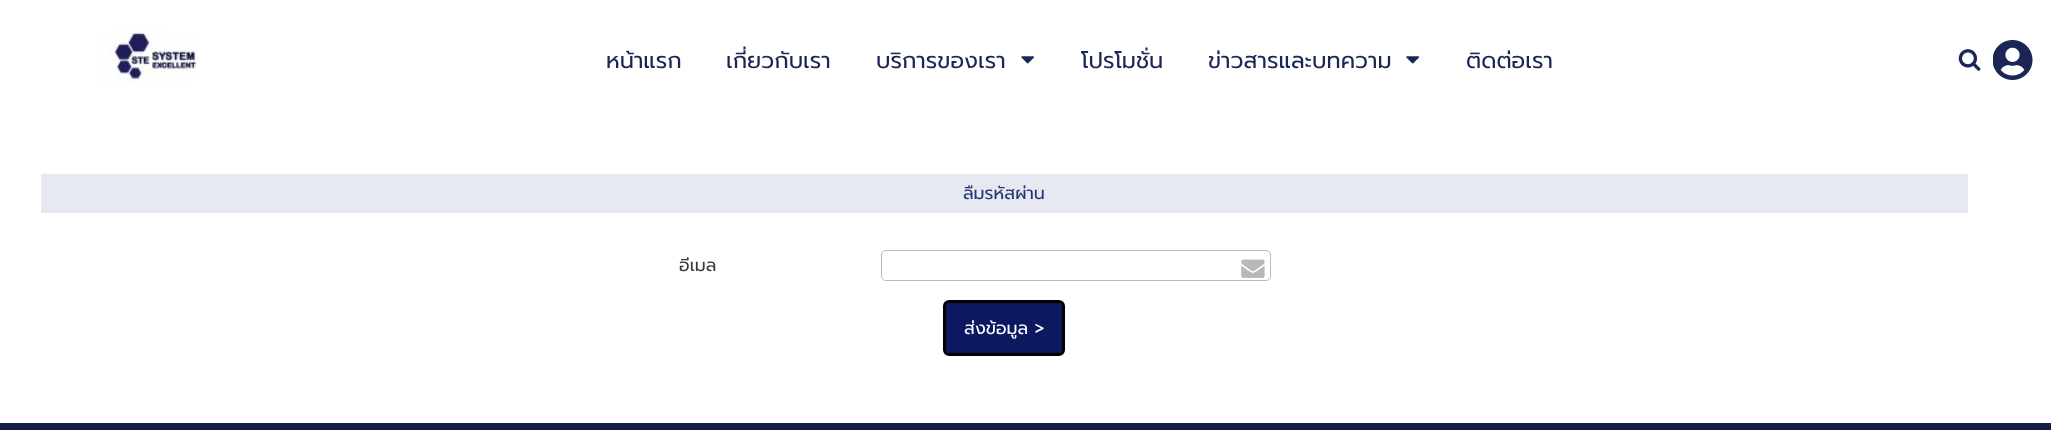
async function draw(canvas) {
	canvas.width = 2051;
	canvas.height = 430;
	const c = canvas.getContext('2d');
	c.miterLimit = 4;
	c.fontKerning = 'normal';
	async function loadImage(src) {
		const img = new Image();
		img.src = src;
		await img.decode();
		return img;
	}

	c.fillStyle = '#fff';
	c.fillRect(0, 0, 2051, 430);
	c.drawImage(await loadImage('img1.png'), 98, 24, 100, 58);
	c.font = '22.5px Prompt';
	c.fillStyle = '#1b2657';
	for (const [text, x, y] of [
		['หน้าแรก', 606, 68],
		['เกี่ยวกับเรา', 726, 68],
		['บริการของเรา', 876, 68],
	]) {
		c.fillText(text, x, y);
	}
	c.drawImage(await loadImage('img2.png'), 1021, 56, 13, 8);
	c.fillText('โปรโมชั่น', 1081, 68);
	c.fillText('ข่าวสารและบทความ', 1208, 68);
	c.drawImage(await loadImage('img2.png'), 1406, 56, 13, 8);
	c.fillText('ติดต่อเรา', 1466, 68);
	c.drawImage(await loadImage('img3.png'), 1958, 49, 23, 22);
	c.drawImage(await loadImage('img4.png'), 1993, 40, 40, 40);
	c.fillStyle = '#e6e8f2';
	c.fillRect(41, 174, 1927, 39);
	c.font = '17.5px Prompt';
	c.fillStyle = '#263473';
	c.fillText('ลืมรหัสผ่าน', 963, 199);
	c.fillStyle = '#383a40';
	c.fillText('อีเมล', 679, 271);
	c.beginPath();
	c.roundRect(881.5, 250.5, 389, 30, 4.5);
	c.strokeStyle = '#bbb';
	c.stroke();
	c.drawImage(await loadImage('img5.png'), 1241, 259, 24, 19);
	c.fillStyle = '#0c1961';
	c.beginPath();
	c.roundRect(944.5, 301.5, 119, 53, 4.5);
	c.fill();
	c.strokeStyle = '#000';
	c.lineWidth = 3;
	c.stroke();
	c.fillStyle = '#fff';
	c.fillText('ส่งข้อมูล >', 964, 334);
	c.fillStyle = '#151d42';
	c.fillRect(0, 423, 2051, 7);
}

draw(document.querySelector('canvas'));
